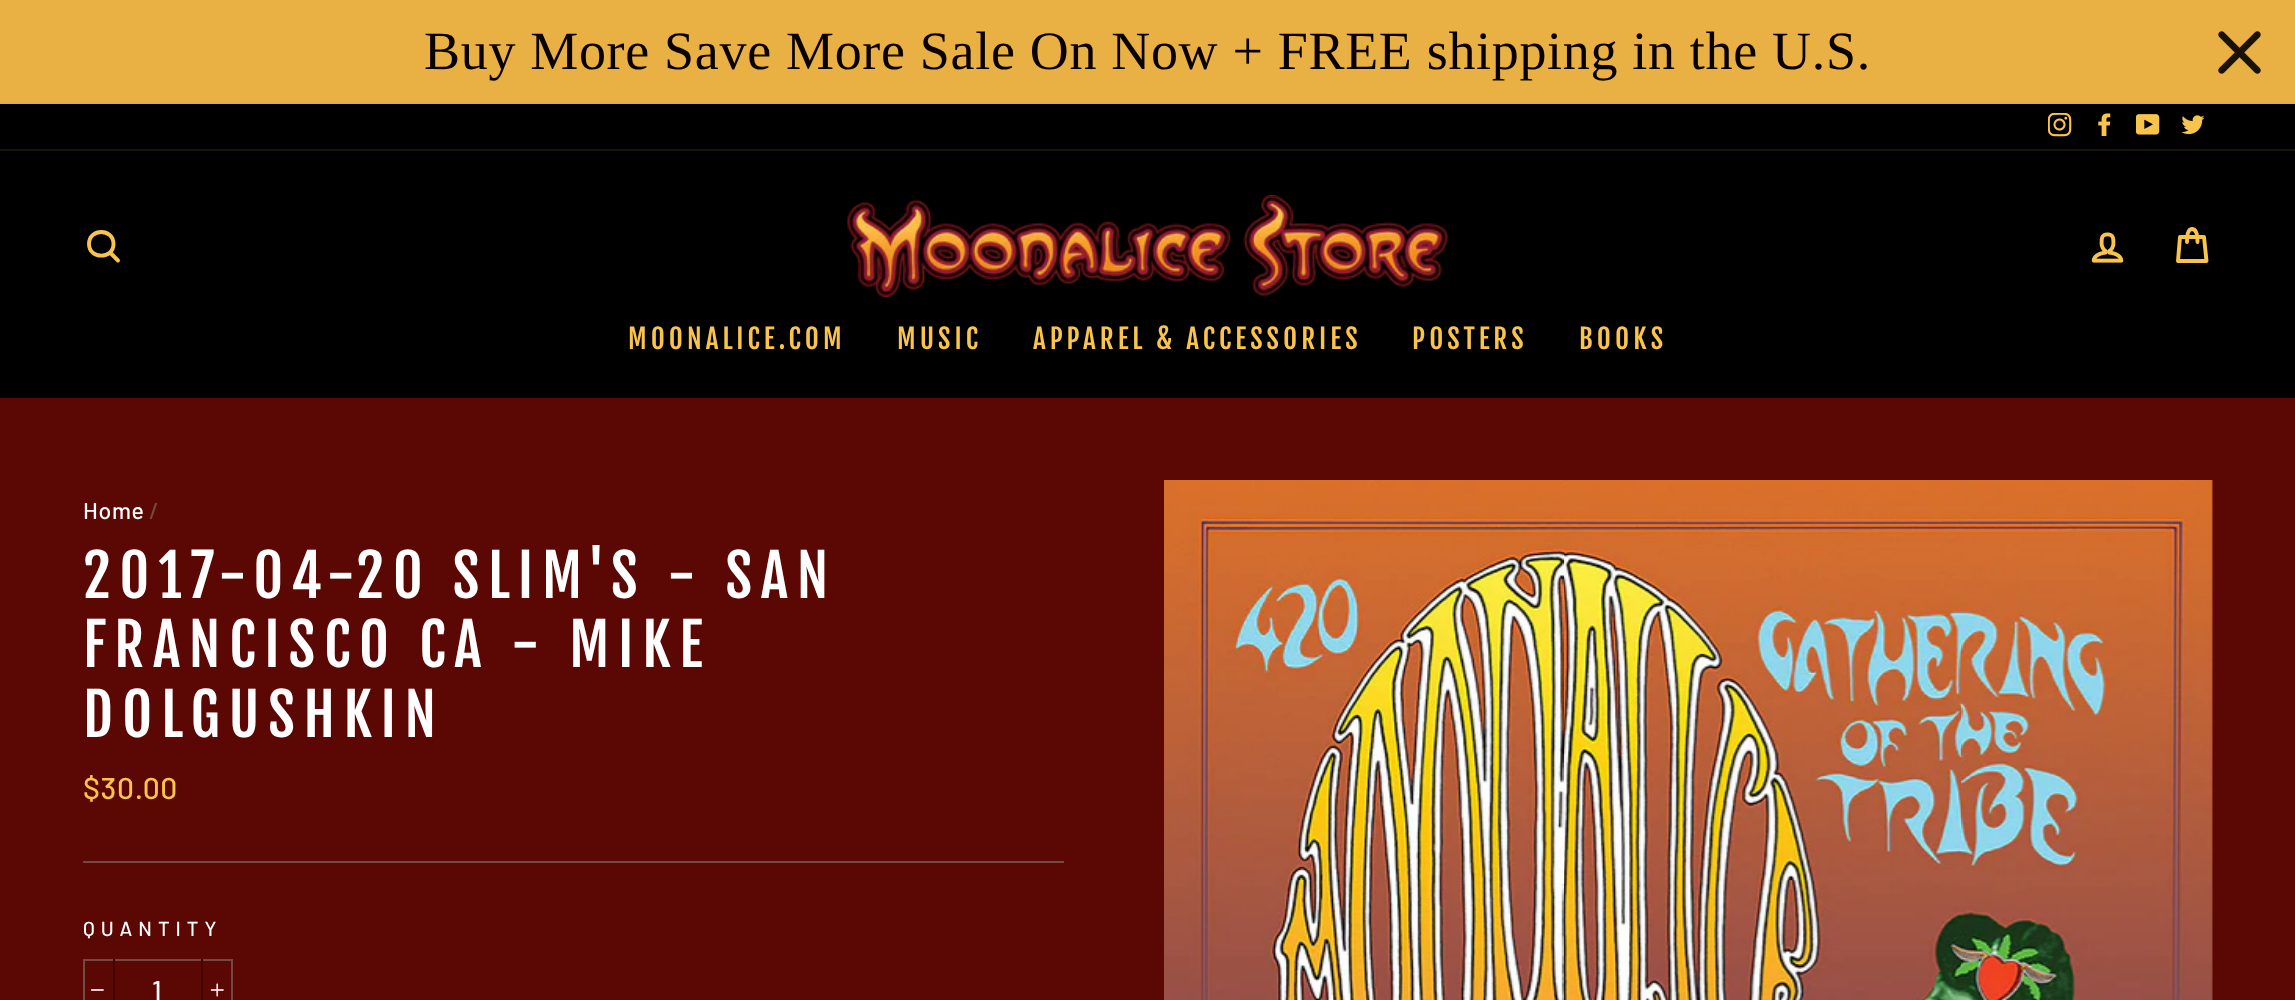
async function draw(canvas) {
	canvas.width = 2295;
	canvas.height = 1000;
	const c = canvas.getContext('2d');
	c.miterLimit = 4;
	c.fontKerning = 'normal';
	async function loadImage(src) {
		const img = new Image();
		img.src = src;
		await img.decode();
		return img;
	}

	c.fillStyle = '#5b0703';
	c.fillRect(0, 0, 2295, 1000);
	c.fillStyle = '#e9b144';
	c.fillRect(0, 0, 2295, 102);
	c.letterSpacing = '0.68px';
	c.font = '54px Liberation Serif';
	c.fillStyle = '#090100';
	c.fillText('Buy More Save More Sale On Now + FREE shipping in the U.S.', 424, 69);
	c.drawImage(await loadImage('img1.png'), 2218, 31, 43, 43);
	c.fillStyle = '#000';
	c.fillRect(0, 104, 2295, 45);
	c.fillStyle = '#e0b044';
	c.fillRect(0, 102, 2295, 2);
	c.drawImage(await loadImage('img2.png'), 2048, 113, 24, 24);
	c.drawImage(await loadImage('img3.png'), 2098, 113, 13, 23);
	c.drawImage(await loadImage('img4.png'), 2136, 114, 24, 21);
	c.drawImage(await loadImage('img5.png'), 2181, 115, 24, 20);
	c.fillStyle = '#000';
	c.fillRect(0, 151, 2295, 247);
	c.fillStyle = '#191408';
	c.fillRect(0, 149, 2295, 2);
	c.beginPath();
	c.moveTo(113.5, 244);
	c.bezierCurveTo(113.5, 259.5, 89, 259.5, 89, 244);
	c.bezierCurveTo(89, 228, 113.5, 228, 113.5, 244);
	c.closePath();
	c.moveTo(118, 260.5);
	c.lineTo(110, 252.5);
	c.strokeStyle = '#f9c44b';
	c.lineWidth = 3.9;
	c.lineCap = 'round';
	c.lineJoin = 'round';
	c.stroke();
	c.drawImage(await loadImage('img6.png'), 847, 195, 601, 102);
	c.drawImage(await loadImage('img7.png'), 2091, 232, 33, 31);
	c.beginPath();
	c.moveTo(2187, 242);
	c.bezierCurveTo(2187, 231.5, 2189, 229, 2192, 229);
	c.bezierCurveTo(2195, 229, 2197.5, 231.5, 2197.5, 242);
	c.moveTo(2180, 237);
	c.lineTo(2204, 237);
	c.lineTo(2206.5, 261);
	c.lineTo(2178, 261);
	c.closePath();
	c.stroke();
	c.letterSpacing = '4.05px';
	c.font = '27px Fjalla One';
	c.fillStyle = '#f9c44b';
	for (const [text, x, y] of [
		['MOONALICE.COM', 628, 349],
		['MUSIC', 897, 349],
		['APPAREL & ACCESSORIES', 1033, 349],
		['POSTERS', 1412, 349],
		['BOOKS', 1579, 349],
	]) {
		c.fillText(text, x, y);
	}
	c.letterSpacing = '0.68px';
	c.font = '500 23px Barlow';
	c.fillStyle = '#fff';
	c.fillText('Home', 83, 519);
	c.fillStyle = '#724a44';
	c.fillText('/', 149, 519);
	c.letterSpacing = '8.75px';
	c.font = '58px Fjalla One';
	c.fillStyle = '#fff';
	for (const [text, x, y] of [
		['2017-04-20 SLIM\'S - SAN', 83, 598],
		['FRANCISCO CA - MIKE', 83, 667],
		['DOLGUSHKIN', 83, 737],
	]) {
		c.fillText(text, x, y);
	}
	c.letterSpacing = '0.68px';
	c.font = '500 30px Barlow';
	c.fillStyle = '#f9c44b';
	c.fillText('$30.00', 83, 799);
	c.fillStyle = '#724a44';
	c.fillRect(83, 861, 981, 2);
	c.letterSpacing = '6px';
	c.font = '500 20.25px Barlow';
	c.fillStyle = '#fff';
	c.fillText('QUANTITY', 83, 936);
	c.strokeStyle = '#724a44';
	c.lineWidth = 2;
	c.lineJoin = 'miter';
	c.strokeRect(84, 960, 148, 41);
	c.fillStyle = '#420502';
	c.fillRect(113, 959, 2, 41);
	c.drawImage(await loadImage('img8.png'), 90, 989, 14, 2);
	c.letterSpacing = '0.68px';
	c.font = '500 27px Barlow';
	c.fillStyle = '#fff';
	c.fillText('1', 152, 1000);
	c.fillStyle = '#420502';
	c.fillRect(201, 959, 2, 41);
	c.drawImage(await loadImage('img9.png'), 210, 983, 14, 14);
	c.drawImage(await loadImage('img10.png'), 1164, 480, 1049, 520);
}

draw(document.querySelector('canvas'));
